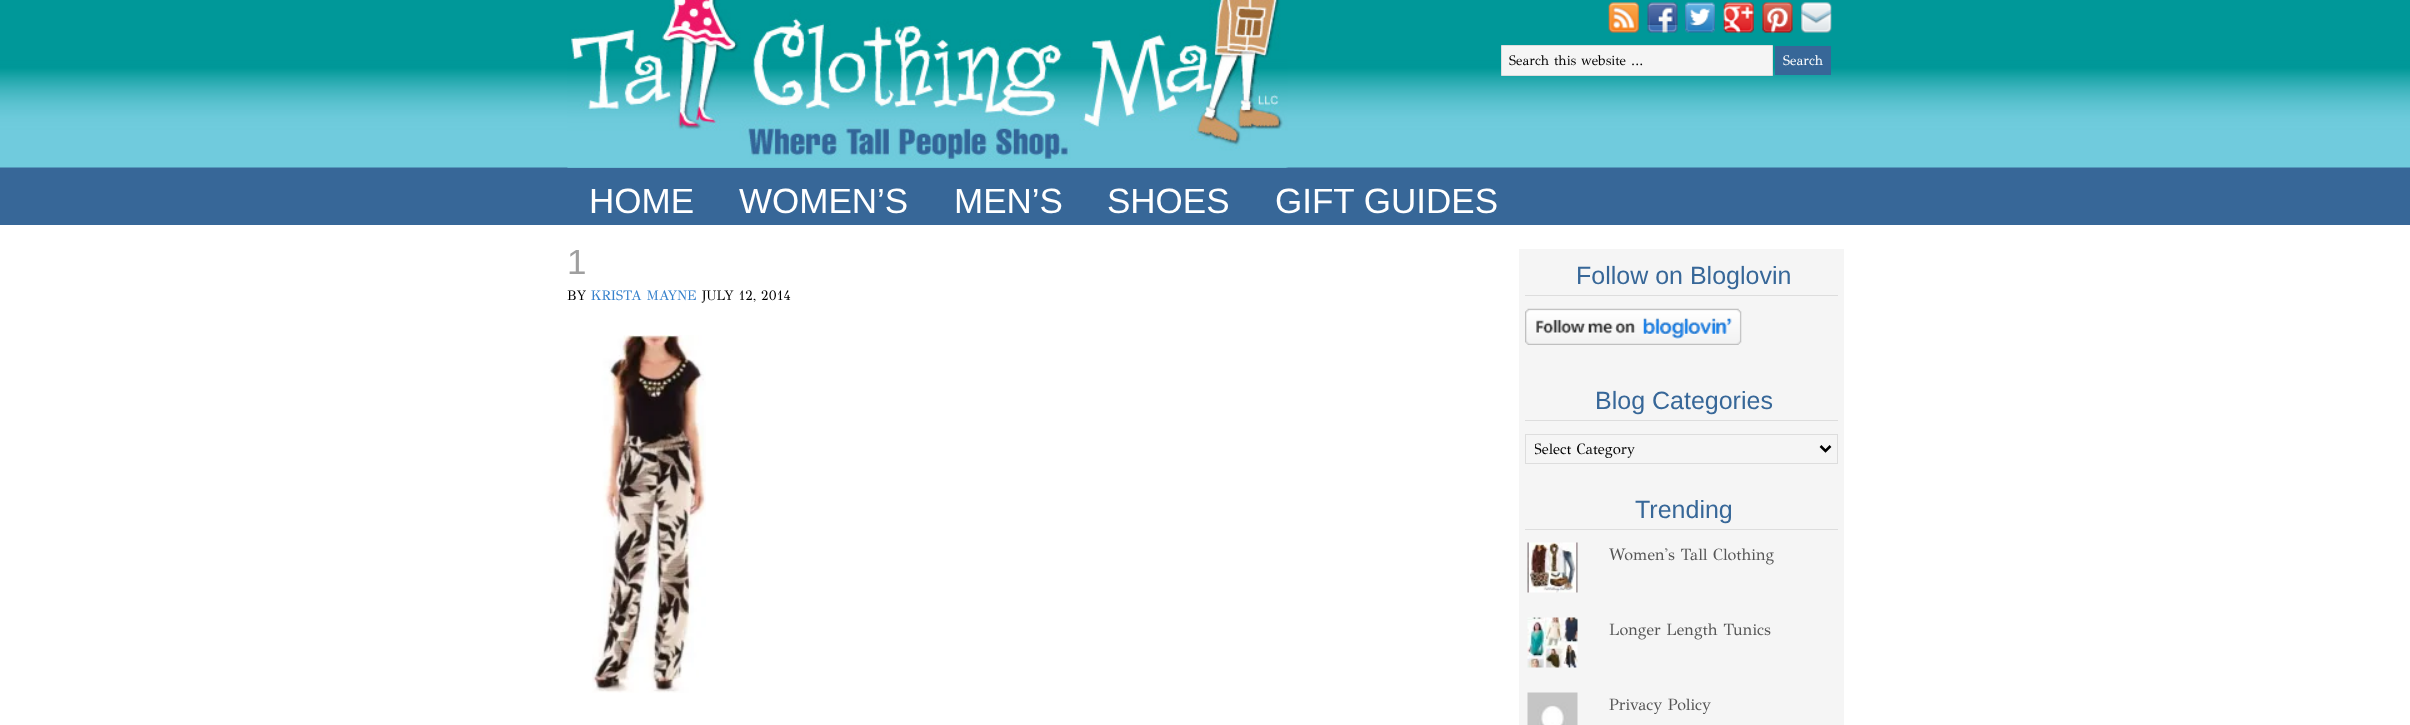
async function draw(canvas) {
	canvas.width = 2410;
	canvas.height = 725;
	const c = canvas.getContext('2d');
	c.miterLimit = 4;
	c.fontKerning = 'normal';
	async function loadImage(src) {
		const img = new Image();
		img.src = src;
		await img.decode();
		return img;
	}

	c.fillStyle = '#fff';
	c.fillRect(0, 0, 2410, 725);
	c.drawImage(await loadImage('img1.png'), 0, 0, 2410, 225);
	c.drawImage(await loadImage('img2.png'), 567, 0, 721, 168);
	c.drawImage(await loadImage('img3.png'), 567, 0, 719, 168);
	c.drawImage(await loadImage('img4.png'), 1608, 2, 31, 31);
	c.drawImage(await loadImage('img5.png'), 1647, 2, 31, 31);
	c.drawImage(await loadImage('img6.png'), 1685, 2, 30, 31);
	c.drawImage(await loadImage('img7.png'), 1723, 2, 31, 31);
	c.drawImage(await loadImage('img8.png'), 1762, 2, 31, 31);
	c.drawImage(await loadImage('img9.png'), 1801, 2, 31, 31);
	c.fillStyle = '#f5f5f5';
	c.beginPath();
	c.rect(1501.5, 45.5, 271, 30);
	c.fill();
	c.strokeStyle = '#ddd';
	c.stroke();
	c.font = '13.75px GFS Didot';
	c.fillStyle = '#000';
	c.fillText('Search this website …', 1509, 65);
	c.fillStyle = '#376798';
	c.fillRect(1775, 46, 56, 29);
	c.fillStyle = '#fff';
	c.fillText('Search', 1783, 65);
	c.font = '35px Liberation Sans';
	for (const [text, x, y] of [
		['HOME', 589, 213],
		['WOMEN’S', 739, 213],
		['MEN’S', 954, 213],
		['SHOES', 1107, 213],
		['GIFT GUIDES', 1275, 213],
	]) {
		c.fillText(text, x, y);
	}
	c.fillStyle = '#9f9f9f';
	c.fillText('1', 567, 274);
	c.font = '13.75px GFS Didot';
	c.fillStyle = '#000';
	c.fillText('BY', 567, 300);
	c.fillStyle = '#3581cc';
	c.fillText('KRISTA MAYNE', 591, 300);
	c.fillStyle = '#000';
	c.fillText('JULY 12, 2014', 702, 300);
	c.drawImage(await loadImage('img10.png'), 592, 335, 114, 358);
	c.fillStyle = '#f5f5f5';
	c.fillRect(1519, 249, 325, 476);
	c.fillStyle = '#ddd';
	c.fillRect(1525, 295, 313, 1);
	c.font = '25px Liberation Sans';
	c.fillStyle = '#376798';
	c.fillText('Follow on Bloglovin', 1576, 284);
	c.drawImage(await loadImage('img11.png'), 1525, 308, 217, 37);
	c.fillStyle = '#ddd';
	c.fillRect(1525, 420, 313, 1);
	c.fillStyle = '#376798';
	c.fillText('Blog Categories', 1595, 409);
	c.strokeRect(1525.5, 434.5, 312, 29);
	c.beginPath();
	c.moveTo(1820.5, 446);
	c.lineTo(1825.5, 451);
	c.lineTo(1830.5, 446);
	c.strokeStyle = '#000';
	c.lineWidth = 2.5;
	c.stroke();
	c.save();
	c.beginPath();
	c.rect(1535, 439, 278, 20);
	c.clip();
	c.font = '15px GFS Didot';
	c.fillStyle = '#000';
	c.fillText('Select Category', 1534, 454);
	c.restore();
	c.fillStyle = '#ddd';
	c.fillRect(1525, 529, 313, 1);
	c.fillStyle = '#376798';
	c.fillText('Trending', 1635, 518);
	c.drawImage(await loadImage('img12.png'), 1527, 542, 51, 51);
	c.font = '16.25px GFS Didot';
	c.fillStyle = '#555';
	c.fillText('Women\'s Tall Clothing', 1609, 560);
	c.drawImage(await loadImage('img13.png'), 1527, 617, 51, 51);
	c.fillText('Longer Length Tunics', 1609, 635);
	c.drawImage(await loadImage('img14.png'), 1527, 692, 51, 33);
	c.fillText('Privacy Policy', 1609, 710);
}

draw(document.querySelector('canvas'));
